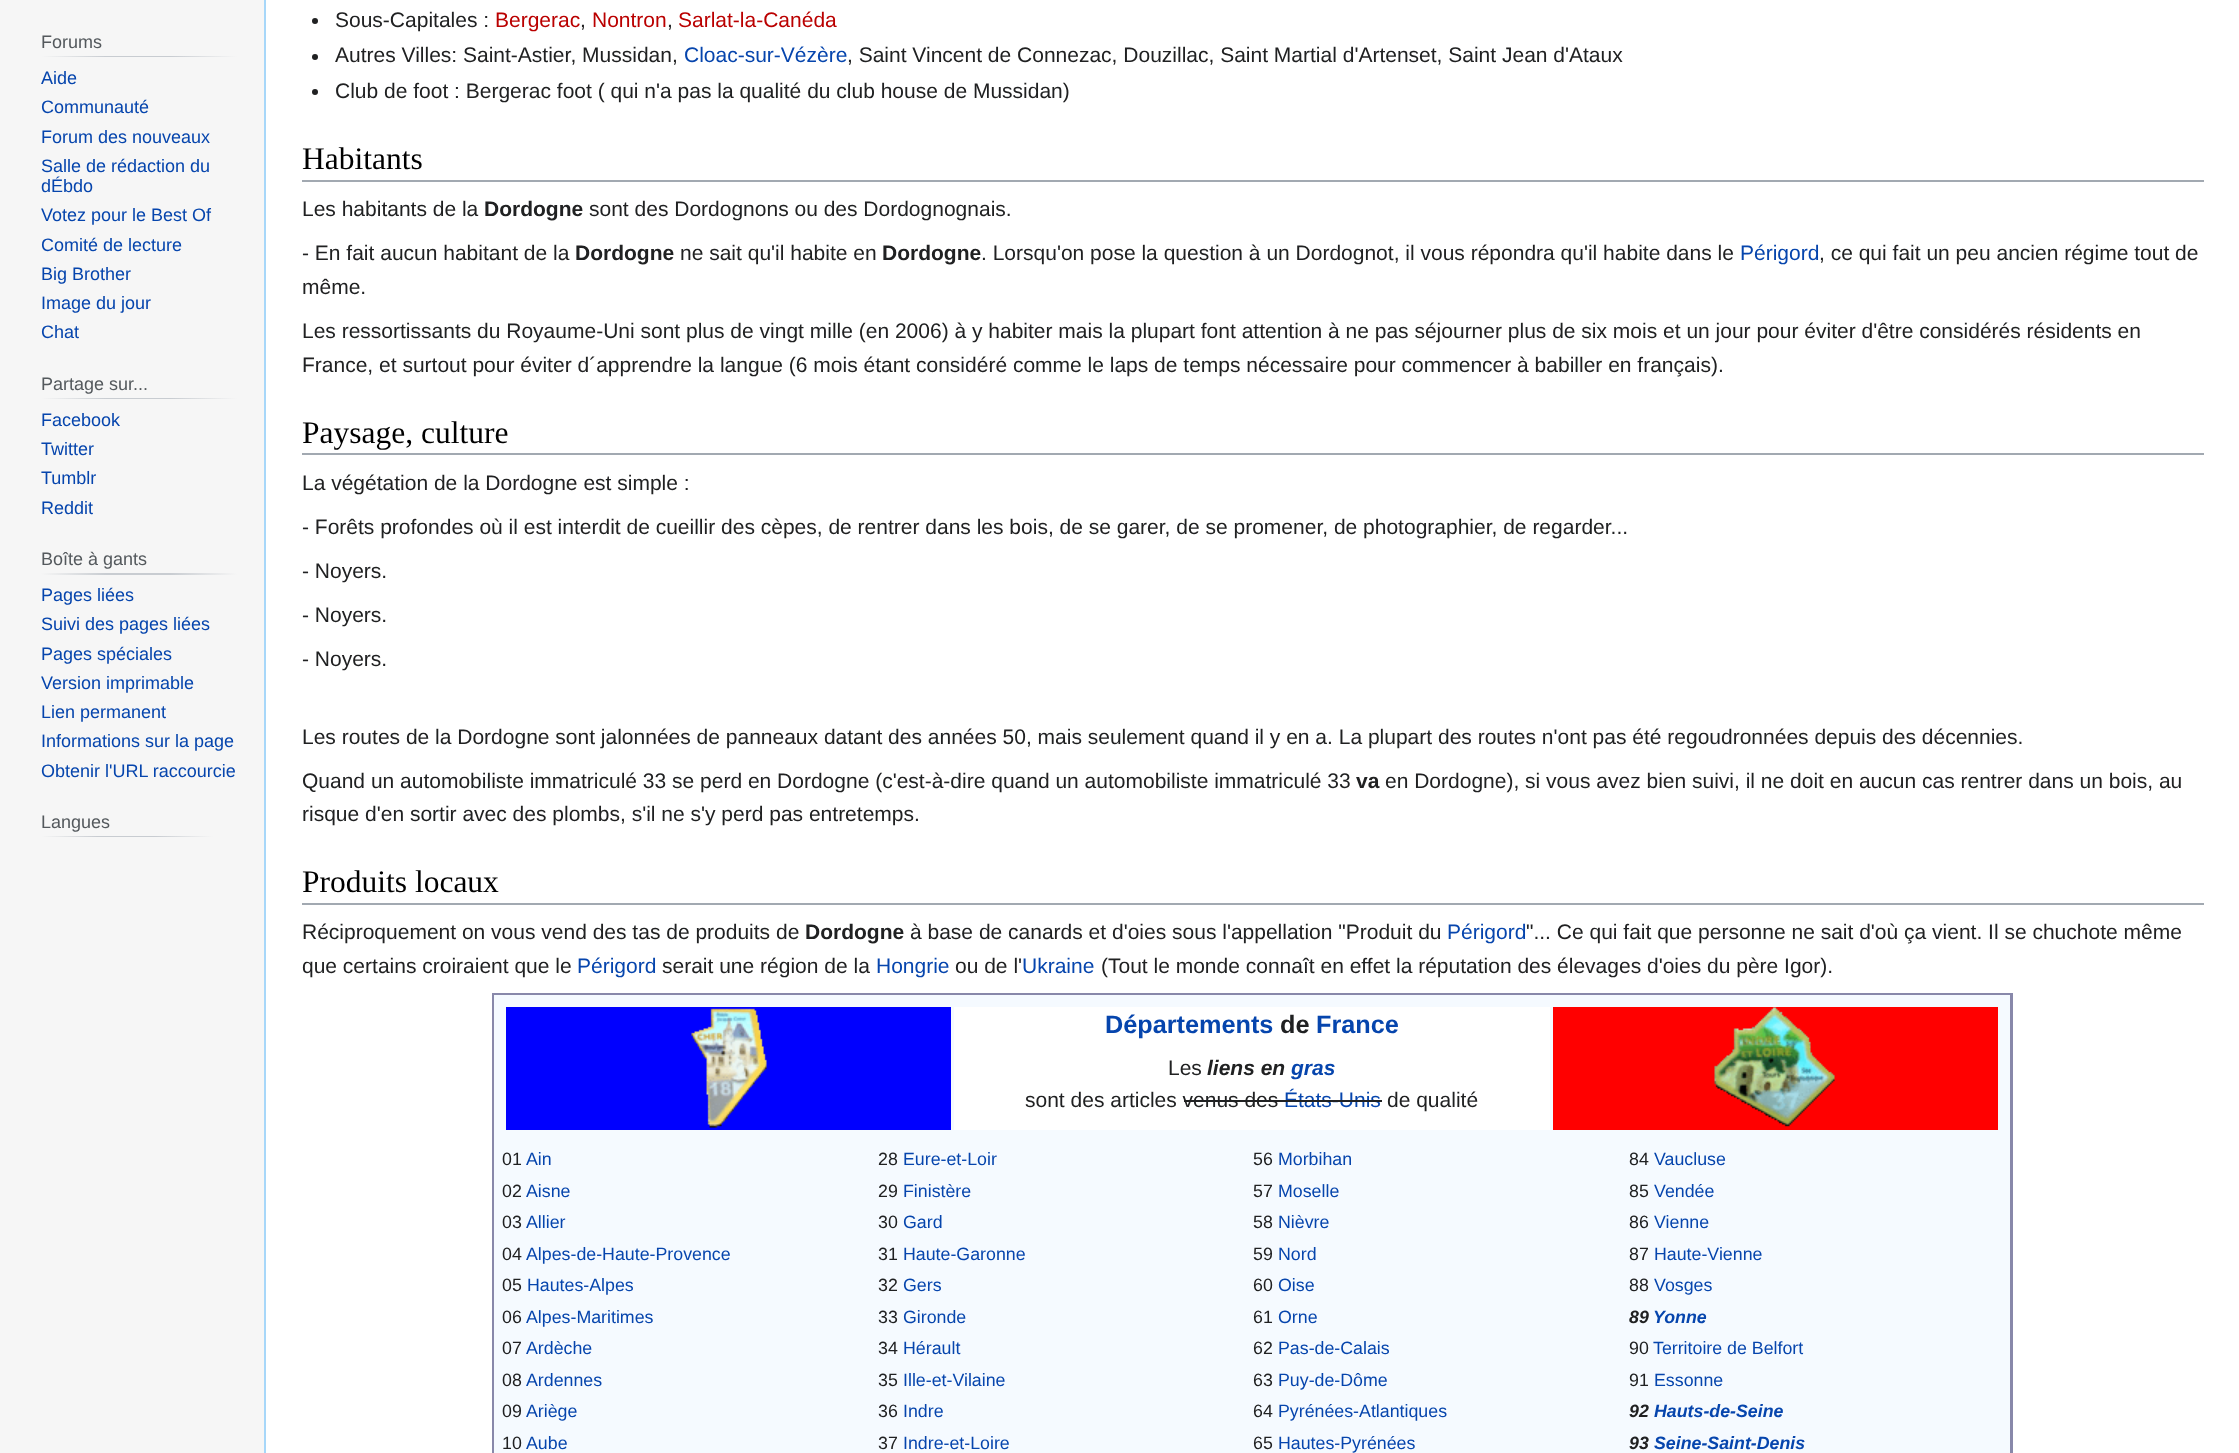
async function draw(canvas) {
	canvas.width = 2239;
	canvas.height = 1453;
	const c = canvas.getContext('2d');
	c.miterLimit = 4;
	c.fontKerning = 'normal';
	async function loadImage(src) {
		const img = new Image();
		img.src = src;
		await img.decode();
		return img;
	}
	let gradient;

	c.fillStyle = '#f6f6f6';
	c.fillRect(0, 0, 2239, 1453);
	gradient = c.createLinearGradient(41, 56, 237, 56);
	gradient.addColorStop(0, '#f6f6f6');
	gradient.addColorStop(0.33, '#c8ccd1');
	gradient.addColorStop(0.66, '#c8ccd1');
	gradient.addColorStop(1, '#f6f6f6');
	c.fillStyle = gradient;
	c.fillRect(41, 56, 196, 1);
	c.font = '18px Liberation Sans';
	c.fillStyle = '#54595d';
	c.fillText('Forums', 41, 48);
	c.fillStyle = '#0645ad';
	for (const [text, x, y] of [
		['Aide', 41, 84],
		['Communauté', 41, 113],
		['Forum des nouveaux', 41, 143],
		['Salle de rédaction du', 41, 172],
		['dÉbdo', 41, 192],
		['Votez pour le Best Of', 41, 221],
		['Comité de lecture', 41, 251],
		['Big Brother', 41, 280],
		['Image du jour', 41, 309],
		['Chat', 41, 338],
	]) {
		c.fillText(text, x, y);
	}
	gradient = c.createLinearGradient(41, 398, 237, 398);
	gradient.addColorStop(0, '#f6f6f6');
	gradient.addColorStop(0.33, '#c8ccd1');
	gradient.addColorStop(0.66, '#c8ccd1');
	gradient.addColorStop(1, '#f6f6f6');
	c.fillStyle = gradient;
	c.fillRect(41, 398, 196, 1);
	c.fillStyle = '#54595d';
	c.fillText('Partage sur...', 41, 390);
	c.fillStyle = '#0645ad';
	for (const [text, x, y] of [
		['Facebook', 41, 426],
		['Twitter', 41, 455],
		['Tumblr', 41, 484],
		['Reddit', 41, 514],
	]) {
		c.fillText(text, x, y);
	}
	gradient = c.createLinearGradient(41, 574, 237, 574);
	gradient.addColorStop(0, '#f6f6f6');
	gradient.addColorStop(0.33, '#c8ccd1');
	gradient.addColorStop(0.66, '#c8ccd1');
	gradient.addColorStop(1, '#f6f6f6');
	c.fillStyle = gradient;
	c.fillRect(41, 573, 196, 2);
	c.fillStyle = '#54595d';
	c.fillText('Boîte à gants', 41, 565);
	c.fillStyle = '#0645ad';
	for (const [text, x, y] of [
		['Pages liées', 41, 601],
		['Suivi des pages liées', 41, 630],
		['Pages spéciales', 41, 660],
		['Version imprimable', 41, 689],
		['Lien permanent', 41, 718],
		['Informations sur la page', 41, 747],
		['Obtenir l\'URL raccourcie', 41, 777],
	]) {
		c.fillText(text, x, y);
	}
	gradient = c.createLinearGradient(41, 836, 213, 836);
	gradient.addColorStop(0, '#f6f6f6');
	gradient.addColorStop(0.33, '#c8ccd1');
	gradient.addColorStop(0.66, '#c8ccd1');
	gradient.addColorStop(1, '#f6f6f6');
	c.fillStyle = gradient;
	c.fillRect(41, 836, 172, 1);
	c.fillStyle = '#54595d';
	c.fillText('Langues', 41, 828);
	c.fillStyle = '#fff';
	c.fillRect(266, 0, 1973, 1453);
	c.fillStyle = '#a7d7f9';
	c.fillRect(264, 0, 2, 1453);
	c.fillStyle = '#202122';
	c.beginPath();
	c.arc(315, 21, 3, 0, 2 * Math.PI);
	c.fill();
	c.font = '21px Liberation Sans';
	c.fillText('Sous-Capitales :', 335, 27);
	c.fillStyle = '#ba0000';
	for (const [text, x, y] of [
		['Bergerac', 495, 27],
		['Nontron', 592, 27],
		['Sarlat-la-Canéda', 678, 27],
	]) {
		c.fillText(text, x, y);
	}
	c.fillStyle = '#202122';
	c.fillText(',', 580, 27);
	c.fillText(',', 667, 27);
	c.beginPath();
	c.arc(315, 57, 3, 0, 2 * Math.PI);
	c.fill();
	c.fillText('Autres Villes: Saint-Astier, Mussidan,', 335, 62);
	c.fillStyle = '#0645ad';
	c.fillText('Cloac-sur-Vézère', 684, 62);
	c.fillStyle = '#202122';
	c.fillText(', Saint Vincent de Connezac, Douzillac, Saint Martial d\'Artenset, Saint Jean d\'Ataux', 847, 62);
	c.beginPath();
	c.arc(315, 92, 3, 0, 2 * Math.PI);
	c.fill();
	c.fillText('Club de foot : Bergerac foot ( qui n\'a pas la qualité du club house de Mussidan)', 335, 98);
	c.fillStyle = '#a2a9b1';
	c.fillRect(302, 180, 1902, 2);
	c.font = '31.5px Liberation Serif';
	c.fillStyle = '#000';
	c.fillText('Habitants', 302, 169);
	c.font = '21px Liberation Sans';
	c.fillStyle = '#202122';
	c.fillText('Les habitants de la', 302, 216);
	c.font = 'bold 21px Liberation Sans';
	c.fillText('Dordogne', 484, 216);
	c.font = '21px Liberation Sans';
	c.fillText('sont des Dordognons ou des Dordognognais.', 589, 216);
	c.fillText('- En fait aucun habitant de la', 302, 260);
	c.font = 'bold 21px Liberation Sans';
	c.fillText('Dordogne', 575, 260);
	c.font = '21px Liberation Sans';
	c.fillText('ne sait qu\'il habite en', 680, 260);
	c.font = 'bold 21px Liberation Sans';
	c.fillText('Dordogne', 882, 260);
	c.font = '21px Liberation Sans';
	c.fillText('. Lorsqu\'on pose la question à un Dordognot, il vous répondra qu\'il habite dans le', 981, 260);
	c.fillStyle = '#0645ad';
	c.fillText('Périgord', 1740, 260);
	c.fillStyle = '#202122';
	for (const [text, x, y] of [
		[', ce qui fait un peu ancien régime tout de', 1819, 260],
		['même.', 302, 294],
		['Les ressortissants du Royaume-Uni sont plus de vingt mille (en 2006) à y habiter mais la plupart font attention à ne pas séjourner plus de six mois et un jour pour éviter d\'être considérés résidents en', 302, 338],
		['France, et surtout pour éviter d´apprendre la langue (6 mois étant considéré comme le laps de temps nécessaire pour commencer à babiller en français).', 302, 372],
	]) {
		c.fillText(text, x, y);
	}
	c.fillStyle = '#a2a9b1';
	c.fillRect(302, 453, 1902, 2);
	c.font = '31.5px Liberation Serif';
	c.fillStyle = '#000';
	c.fillText('Paysage, culture', 302, 443);
	c.font = '21px Liberation Sans';
	c.fillStyle = '#202122';
	for (const [text, x, y] of [
		['La végétation de la Dordogne est simple :', 302, 490],
		['- Forêts profondes où il est interdit de cueillir des cèpes, de rentrer dans les bois, de se garer, de se promener, de photographier, de regarder...', 302, 534],
		['- Noyers.', 302, 578],
		['- Noyers.', 302, 622],
		['- Noyers.', 302, 666],
		['Les routes de la Dordogne sont jalonnées de panneaux datant des années 50, mais seulement quand il y en a. La plupart des routes n\'ont pas été regoudronnées depuis des décennies.', 302, 744],
		['Quand un automobiliste immatriculé 33 se perd en Dordogne (c\'est-à-dire quand un automobiliste immatriculé 33', 302, 788],
	]) {
		c.fillText(text, x, y);
	}
	c.font = 'bold 21px Liberation Sans';
	c.fillText('va', 1356, 788);
	c.font = '21px Liberation Sans';
	c.fillText('en Dordogne), si vous avez bien suivi, il ne doit en aucun cas rentrer dans un bois, au', 1385, 788);
	c.fillText('risque d\'en sortir avec des plombs, s\'il ne s\'y perd pas entretemps.', 302, 821);
	c.fillStyle = '#a2a9b1';
	c.fillRect(302, 903, 1902, 2);
	c.font = '31.5px Liberation Serif';
	c.fillStyle = '#000';
	c.fillText('Produits locaux', 302, 892);
	c.font = '21px Liberation Sans';
	c.fillStyle = '#202122';
	c.fillText('Réciproquement on vous vend des tas de produits de', 302, 939);
	c.font = 'bold 21px Liberation Sans';
	c.fillText('Dordogne', 805, 939);
	c.font = '21px Liberation Sans';
	c.fillText('à base de canards et d\'oies sous l\'appellation "Produit du', 910, 939);
	c.fillStyle = '#0645ad';
	c.fillText('Périgord', 1447, 939);
	c.fillStyle = '#202122';
	c.fillText('"... Ce qui fait que personne ne sait d\'où ça vient. Il se chuchote même', 1526, 939);
	c.fillText('que certains croiraient que le', 302, 973);
	c.fillStyle = '#0645ad';
	c.fillText('Périgord', 577, 973);
	c.fillStyle = '#202122';
	c.fillText('serait une région de la', 662, 973);
	c.fillStyle = '#0645ad';
	c.fillText('Hongrie', 876, 973);
	c.fillStyle = '#202122';
	c.fillText('ou de l\'', 955, 973);
	c.fillStyle = '#0645ad';
	c.fillText('Ukraine', 1022, 973);
	c.fillStyle = '#202122';
	c.fillText('(Tout le monde connaît en effet la réputation des élevages d\'oies du père Igor).', 1101, 973);
	for (const [x, y, w, h, color] of [
		[494, 995, 1516, 458, '#f5faff'],
		[492, 993, 1521, 2, '#88a'],
		[2010, 993, 3, 460, '#88a'],
		[492, 993, 2, 460, '#88a'],
		[506, 1007, 445, 123, '#00f'],
	]) {
		c.fillStyle = color;
		c.fillRect(x, y, w, h);
	}
	c.drawImage(await loadImage('img1.png'), 691, 1008, 76, 120);
	c.fillStyle = '#fff';
	c.fillRect(954, 1007, 596, 123);
	c.font = 'bold 25.25px Liberation Sans';
	c.fillStyle = '#0645ad';
	c.fillText('Départements', 1105, 1033);
	c.fillStyle = '#202122';
	c.fillText('de', 1280, 1033);
	c.fillStyle = '#0645ad';
	c.fillText('France', 1316, 1033);
	c.font = '21px Liberation Sans';
	c.fillStyle = '#202122';
	c.fillText('Les', 1168, 1075);
	c.font = 'italic bold 21px Liberation Sans';
	c.fillText('liens en', 1207, 1075);
	c.fillStyle = '#0645ad';
	c.fillText('gras', 1291, 1075);
	c.font = '21px Liberation Sans';
	c.fillStyle = '#202122';
	c.fillText('sont des articles venus des', 1025, 1107);
	c.fillStyle = '#0645ad';
	c.fillText('États-Unis', 1284, 1107);
	c.fillStyle = '#202122';
	c.fillRect(1184, 1100, 100, 2);
	c.fillRect(1284, 1100, 98, 2);
	c.fillText('de qualité', 1387, 1107);
	c.fillStyle = '#f00';
	c.fillRect(1553, 1007, 445, 123);
	c.drawImage(await loadImage('img2.png'), 1714, 1007, 121, 120);
	c.font = '17.8px Liberation Sans';
	c.fillStyle = '#202122';
	c.fillText('01', 502, 1165);
	c.fillStyle = '#0645ad';
	c.fillText('Ain', 526, 1165);
	c.fillStyle = '#202122';
	c.fillText('02', 502, 1197);
	c.fillStyle = '#0645ad';
	c.fillText('Aisne', 526, 1197);
	c.fillStyle = '#202122';
	c.fillText('03', 502, 1228);
	c.fillStyle = '#0645ad';
	c.fillText('Allier', 526, 1228);
	c.fillStyle = '#202122';
	c.fillText('04', 502, 1260);
	c.fillStyle = '#0645ad';
	c.fillText('Alpes-de-Haute-Provence', 526, 1260);
	c.fillStyle = '#202122';
	c.fillText('05', 502, 1291);
	c.fillStyle = '#0645ad';
	c.fillText('Hautes-Alpes', 527, 1291);
	c.fillStyle = '#202122';
	c.fillText('06', 502, 1323);
	c.fillStyle = '#0645ad';
	c.fillText('Alpes-Maritimes', 526, 1323);
	c.fillStyle = '#202122';
	c.fillText('07', 502, 1354);
	c.fillStyle = '#0645ad';
	c.fillText('Ardèche', 526, 1354);
	c.fillStyle = '#202122';
	c.fillText('08', 502, 1386);
	c.fillStyle = '#0645ad';
	c.fillText('Ardennes', 526, 1386);
	c.fillStyle = '#202122';
	c.fillText('09', 502, 1417);
	c.fillStyle = '#0645ad';
	c.fillText('Ariège', 526, 1417);
	c.fillStyle = '#202122';
	c.fillText('10', 502, 1449);
	c.fillStyle = '#0645ad';
	c.fillText('Aube', 526, 1449);
	c.fillStyle = '#202122';
	c.fillText('28', 878, 1165);
	c.fillStyle = '#0645ad';
	c.fillText('Eure-et-Loir', 903, 1165);
	c.fillStyle = '#202122';
	c.fillText('29', 878, 1197);
	c.fillStyle = '#0645ad';
	c.fillText('Finistère', 903, 1197);
	c.fillStyle = '#202122';
	c.fillText('30', 878, 1228);
	c.fillStyle = '#0645ad';
	c.fillText('Gard', 903, 1228);
	c.fillStyle = '#202122';
	c.fillText('31', 878, 1260);
	c.fillStyle = '#0645ad';
	c.fillText('Haute-Garonne', 903, 1260);
	c.fillStyle = '#202122';
	c.fillText('32', 878, 1291);
	c.fillStyle = '#0645ad';
	c.fillText('Gers', 903, 1291);
	c.fillStyle = '#202122';
	c.fillText('33', 878, 1323);
	c.fillStyle = '#0645ad';
	c.fillText('Gironde', 903, 1323);
	c.fillStyle = '#202122';
	c.fillText('34', 878, 1354);
	c.fillStyle = '#0645ad';
	c.fillText('Hérault', 903, 1354);
	c.fillStyle = '#202122';
	c.fillText('35', 878, 1386);
	c.fillStyle = '#0645ad';
	c.fillText('Ille-et-Vilaine', 903, 1386);
	c.fillStyle = '#202122';
	c.fillText('36', 878, 1417);
	c.fillStyle = '#0645ad';
	c.fillText('Indre', 903, 1417);
	c.fillStyle = '#202122';
	c.fillText('37', 878, 1449);
	c.fillStyle = '#0645ad';
	c.fillText('Indre-et-Loire', 903, 1449);
	c.fillStyle = '#202122';
	c.fillText('56', 1253, 1165);
	c.fillStyle = '#0645ad';
	c.fillText('Morbihan', 1278, 1165);
	c.fillStyle = '#202122';
	c.fillText('57', 1253, 1197);
	c.fillStyle = '#0645ad';
	c.fillText('Moselle', 1278, 1197);
	c.fillStyle = '#202122';
	c.fillText('58', 1253, 1228);
	c.fillStyle = '#0645ad';
	c.fillText('Nièvre', 1278, 1228);
	c.fillStyle = '#202122';
	c.fillText('59', 1253, 1260);
	c.fillStyle = '#0645ad';
	c.fillText('Nord', 1278, 1260);
	c.fillStyle = '#202122';
	c.fillText('60', 1253, 1291);
	c.fillStyle = '#0645ad';
	c.fillText('Oise', 1278, 1291);
	c.fillStyle = '#202122';
	c.fillText('61', 1253, 1323);
	c.fillStyle = '#0645ad';
	c.fillText('Orne', 1278, 1323);
	c.fillStyle = '#202122';
	c.fillText('62', 1253, 1354);
	c.fillStyle = '#0645ad';
	c.fillText('Pas-de-Calais', 1278, 1354);
	c.fillStyle = '#202122';
	c.fillText('63', 1253, 1386);
	c.fillStyle = '#0645ad';
	c.fillText('Puy-de-Dôme', 1278, 1386);
	c.fillStyle = '#202122';
	c.fillText('64', 1253, 1417);
	c.fillStyle = '#0645ad';
	c.fillText('Pyrénées-Atlantiques', 1278, 1417);
	c.fillStyle = '#202122';
	c.fillText('65', 1253, 1449);
	c.fillStyle = '#0645ad';
	c.fillText('Hautes-Pyrénées', 1278, 1449);
	c.fillStyle = '#202122';
	c.fillText('84', 1629, 1165);
	c.fillStyle = '#0645ad';
	c.fillText('Vaucluse', 1654, 1165);
	c.fillStyle = '#202122';
	c.fillText('85', 1629, 1197);
	c.fillStyle = '#0645ad';
	c.fillText('Vendée', 1654, 1197);
	c.fillStyle = '#202122';
	c.fillText('86', 1629, 1228);
	c.fillStyle = '#0645ad';
	c.fillText('Vienne', 1654, 1228);
	c.fillStyle = '#202122';
	c.fillText('87', 1629, 1260);
	c.fillStyle = '#0645ad';
	c.fillText('Haute-Vienne', 1654, 1260);
	c.fillStyle = '#202122';
	c.fillText('88', 1629, 1291);
	c.fillStyle = '#0645ad';
	c.fillText('Vosges', 1654, 1291);
	c.font = 'italic bold 17.8px Liberation Sans';
	c.fillStyle = '#202122';
	c.fillText('89', 1629, 1323);
	c.fillStyle = '#0645ad';
	c.fillText('Yonne', 1653, 1323);
	c.font = '17.8px Liberation Sans';
	c.fillStyle = '#202122';
	c.fillText('90', 1629, 1354);
	c.fillStyle = '#0645ad';
	c.fillText('Territoire de Belfort', 1653, 1354);
	c.fillStyle = '#202122';
	c.fillText('91', 1629, 1386);
	c.fillStyle = '#0645ad';
	c.fillText('Essonne', 1654, 1386);
	c.font = 'italic bold 17.8px Liberation Sans';
	c.fillStyle = '#202122';
	c.fillText('92', 1629, 1417);
	c.fillStyle = '#0645ad';
	c.fillText('Hauts-de-Seine', 1654, 1417);
	c.fillStyle = '#202122';
	c.fillText('93', 1629, 1449);
	c.fillStyle = '#0645ad';
	c.fillText('Seine-Saint-Denis', 1654, 1449);
}

draw(document.querySelector('canvas'));
